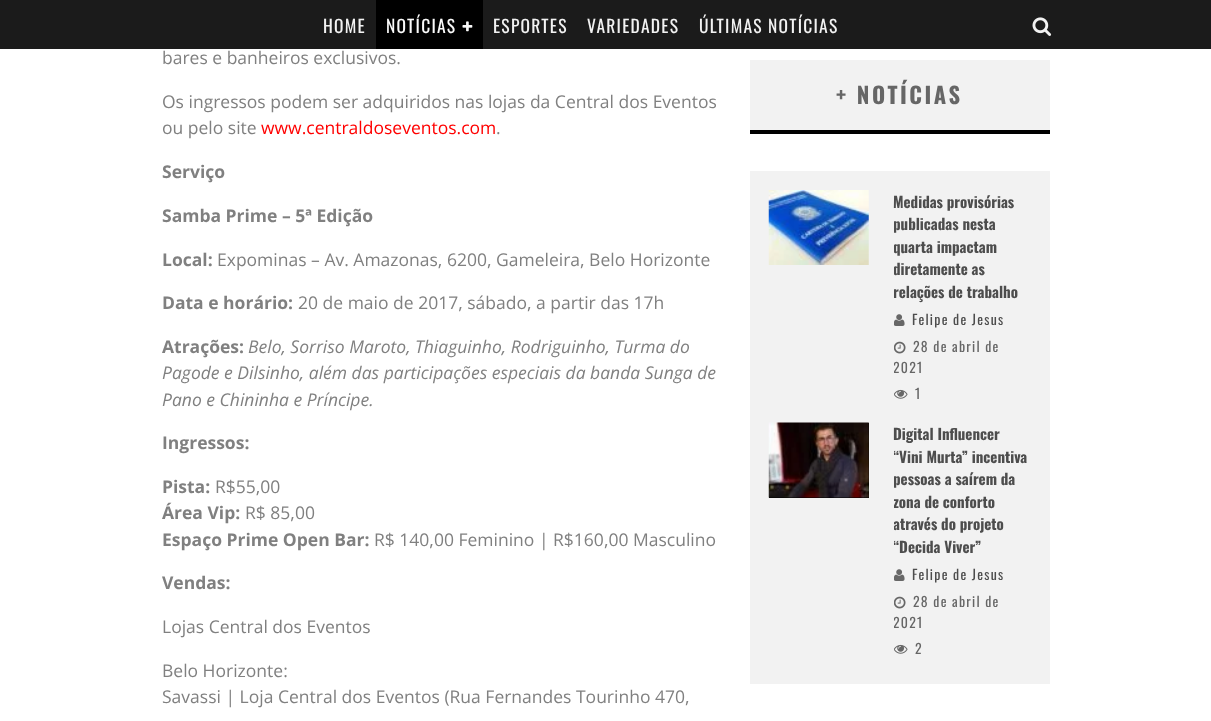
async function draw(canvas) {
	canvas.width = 1211;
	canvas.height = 721;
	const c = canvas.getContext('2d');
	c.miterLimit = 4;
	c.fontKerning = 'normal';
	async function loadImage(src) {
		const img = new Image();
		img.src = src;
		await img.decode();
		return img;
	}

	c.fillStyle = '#fff';
	c.fillRect(0, 0, 1211, 721);
	c.fillStyle = '#1b1b1b';
	c.fillRect(0, 0, 1211, 49);
	c.letterSpacing = '1.25px';
	c.font = '17.5px Oswald';
	c.fillStyle = '#f2f2f2';
	c.fillText('HOME', 323, 33);
	c.fillStyle = '#000';
	c.fillRect(376, 0, 107, 49);
	c.fillStyle = '#fafafa';
	c.fillText('NOTÍCIAS', 386, 33);
	c.drawImage(await loadImage('img1.png'), 462, 21, 11, 11);
	c.fillStyle = '#f2f2f2';
	for (const [text, x, y] of [
		['ESPORTES', 493, 33],
		['VARIEDADES', 587, 33],
		['ÚLTIMAS NOTÍCIAS', 699, 33],
	]) {
		c.fillText(text, x, y);
	}
	c.drawImage(await loadImage('img2.png'), 1032, 17, 20, 19);
	c.letterSpacing = '0px';
	c.font = '17.5px Open Sans';
	c.fillStyle = '#808080';
	for (const [text, x, y] of [
		['bares e banheiros exclusivos.', 162, 64],
		['Os ingressos podem ser adquiridos nas lojas da Central dos Eventos', 162, 108],
		['ou pelo site', 162, 134],
	]) {
		c.fillText(text, x, y);
	}
	c.fillStyle = '#f00';
	c.fillText('www.centraldoseventos.com', 261, 134);
	c.fillStyle = '#808080';
	c.fillText('.', 496, 134);
	c.font = 'bold 17.5px Open Sans';
	for (const [text, x, y] of [
		['Serviço', 162, 178],
		['Samba Prime – 5ª Edição', 162, 222],
		['Local:', 162, 266],
	]) {
		c.fillText(text, x, y);
	}
	c.font = '17.5px Open Sans';
	c.fillText('Expominas – Av. Amazonas, 6200, Gameleira, Belo Horizonte', 217, 266);
	c.font = 'bold 17.5px Open Sans';
	c.fillText('Data e horário:', 162, 309);
	c.font = '17.5px Open Sans';
	c.fillText('20 de maio de 2017, sábado, a partir das 17h', 298, 309);
	c.font = 'bold 17.5px Open Sans';
	c.fillText('Atrações:', 162, 353);
	c.font = 'italic 17.5px Open Sans';
	for (const [text, x, y] of [
		['Belo, Sorriso Maroto, Thiaguinho, Rodriguinho, Turma do', 248, 353],
		['Pagode e Dilsinho, além das participações especiais da banda Sunga de', 162, 379],
		['Pano e Chininha e Príncipe.', 162, 406],
	]) {
		c.fillText(text, x, y);
	}
	c.font = 'bold 17.5px Open Sans';
	c.fillText('Ingressos:', 162, 449);
	c.fillText('Pista:', 162, 493);
	c.font = '17.5px Open Sans';
	c.fillText('R$55,00', 215, 493);
	c.font = 'bold 17.5px Open Sans';
	c.fillText('Área Vip:', 162, 519);
	c.font = '17.5px Open Sans';
	c.fillText('R$ 85,00', 245, 519);
	c.font = 'bold 17.5px Open Sans';
	c.fillText('Espaço Prime Open Bar:', 162, 546);
	c.font = '17.5px Open Sans';
	c.fillText('R$ 140,00 Feminino | R$160,00 Masculino', 374, 546);
	c.font = 'bold 17.5px Open Sans';
	c.fillText('Vendas:', 162, 589);
	c.font = '17.5px Open Sans';
	for (const [text, x, y] of [
		['Lojas Central dos Eventos', 162, 633],
		['Belo Horizonte:', 162, 677],
		['Savassi | Loja Central dos Eventos (Rua Fernandes Tourinho 470,', 162, 703],
	]) {
		c.fillText(text, x, y);
	}
	c.fillStyle = '#f2f2f2';
	c.fillRect(750, 60, 300, 70);
	c.fillStyle = '#000';
	c.fillRect(750, 130, 300, 4);
	c.letterSpacing = '2.5px';
	c.font = 'bold 22.5px Oswald';
	c.fillStyle = '#666';
	c.fillText('+ NOTÍCIAS', 836, 104);
	c.fillStyle = '#f2f2f2';
	c.fillRect(750, 171, 300, 513);
	c.drawImage(await loadImage('img3.png'), 768, 190, 101, 75);
	c.letterSpacing = '0px';
	c.font = 'bold 15px Oswald';
	c.fillStyle = '#4d4d4d';
	c.fillText('Medidas provisórias', 893, 208);
	c.save();
	c.beginPath();
	c.rect(894, 190, 137, 220);
	c.clip();
	for (const [text, x, y] of [
		['publicadas nesta', 893, 230],
		['quarta impactam', 893, 253],
		['diretamente as', 893, 275],
		['relações de trabalho', 893, 298],
	]) {
		c.fillText(text, x, y);
	}
	c.restore();
	c.drawImage(await loadImage('img4.png'), 894, 314, 11, 12);
	c.letterSpacing = '1.25px';
	c.font = '13.75px Oswald';
	c.fillText('Felipe de Jesus', 912, 325);
	c.drawImage(await loadImage('img5.png'), 894, 341, 12, 13);
	c.fillStyle = '#666';
	c.fillText('28 de abril de', 913, 352);
	c.save();
	c.beginPath();
	c.rect(894, 190, 137, 220);
	c.clip();
	c.fillText('2021', 893, 373);
	c.restore();
	c.drawImage(await loadImage('img6.png'), 894, 389, 14, 10);
	c.fillText('1', 915, 399);
	c.fillStyle = '#000';
	c.fillRect(769, 423, 100, 75);
	c.drawImage(await loadImage('img7.png'), 768, 422, 101, 76);
	c.letterSpacing = '0px';
	c.font = 'bold 15px Oswald';
	c.fillStyle = '#4d4d4d';
	c.fillText('Digital Influencer', 893, 440);
	c.save();
	c.beginPath();
	c.rect(894, 423, 137, 242);
	c.clip();
	for (const [text, x, y] of [
		['“Vini Murta” incentiva', 893, 463],
		['pessoas a saírem da', 893, 485],
		['zona de conforto', 893, 508],
		['através do projeto', 893, 530],
		['“Decida Viver”', 893, 553],
	]) {
		c.fillText(text, x, y);
	}
	c.restore();
	c.drawImage(await loadImage('img4.png'), 894, 569, 11, 12);
	c.letterSpacing = '1.25px';
	c.font = '13.75px Oswald';
	c.fillText('Felipe de Jesus', 912, 580);
	c.drawImage(await loadImage('img5.png'), 894, 596, 12, 13);
	c.fillStyle = '#666';
	c.fillText('28 de abril de', 913, 607);
	c.save();
	c.beginPath();
	c.rect(894, 423, 137, 242);
	c.clip();
	c.fillText('2021', 893, 628);
	c.restore();
	c.drawImage(await loadImage('img6.png'), 894, 644, 14, 10);
	c.fillText('2', 915, 654);
}

draw(document.querySelector('canvas'));
